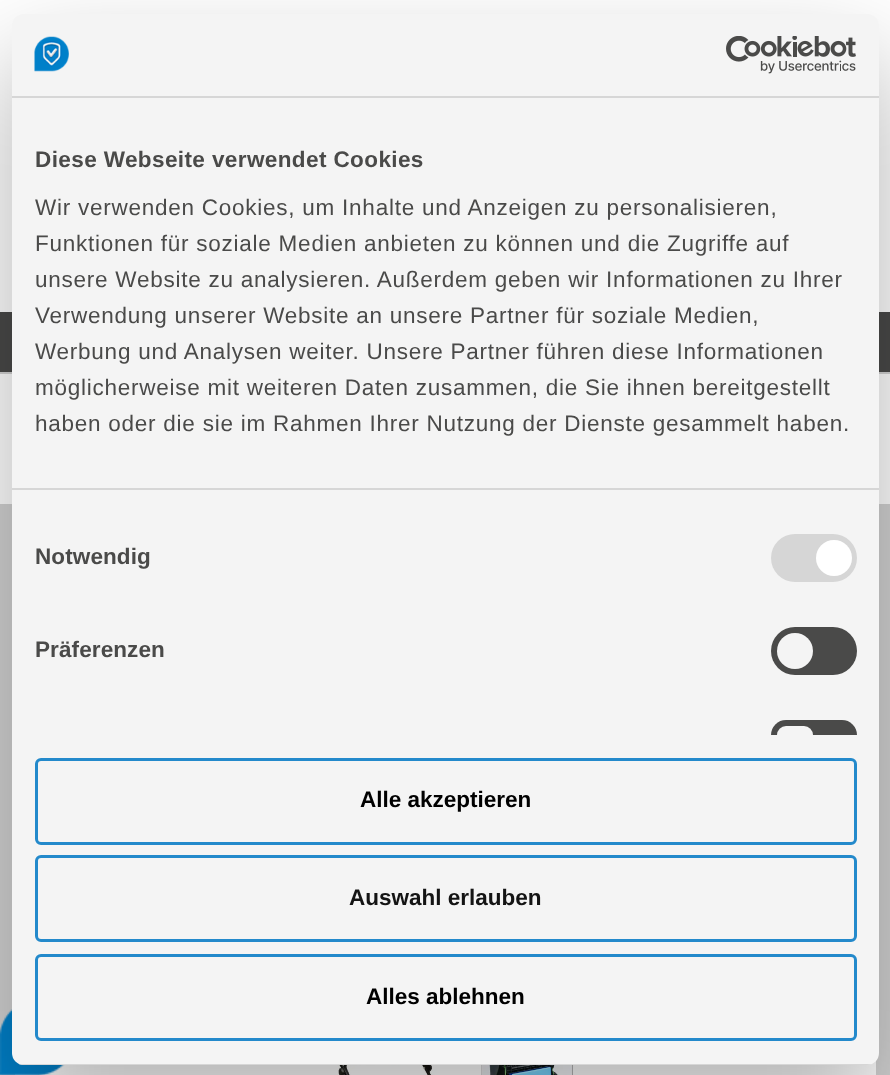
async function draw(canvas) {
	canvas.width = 890;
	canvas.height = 1075;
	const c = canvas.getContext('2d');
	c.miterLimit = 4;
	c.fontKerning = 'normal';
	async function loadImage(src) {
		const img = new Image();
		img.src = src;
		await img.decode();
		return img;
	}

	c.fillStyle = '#fff';
	c.fillRect(0, 0, 890, 1075);
	for (const [x, y, w, h, color] of [
		[0, 504, 890, 571, '#d3d3d3'],
		[0, 312, 890, 60, '#4a4a49'],
		[0, 372, 890, 2, '#d3d3d3'],
		[15, 1060, 861, 15, '#fff'],
	]) {
		c.fillStyle = color;
		c.fillRect(x, y, w, h);
	}
	c.drawImage(await loadImage('img3.png'), 318, 1065, 255, 10);
	c.drawImage(await loadImage('img4.png'), 0, 1009, 65, 66);
	c.fillStyle = '#0000004d';
	c.filter = 'blur(51px)';
	c.beginPath();
	c.roundRect(12, 62, 867, 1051, 12);
	c.fill();
	c.filter = 'none';
	c.fillStyle = '#f4f4f4';
	c.beginPath();
	c.roundRect(12, 14, 867, 1051, 12);
	c.fill();
	c.fillStyle = '#d6d6d6';
	c.fillRect(12, 96, 867, 2);
	c.drawImage(await loadImage('img1.png'), 34, 36, 35, 36);
	c.drawImage(await loadImage('img2.png'), 726, 36, 130, 38);
	c.fillRect(12, 488, 867, 2);
	c.letterSpacing = '0.4px';
	c.font = 'bold 22.5px Liberation Sans';
	c.fillStyle = '#4a4a49';
	c.fillText('Diese Webseite verwendet Cookies', 35, 167);
	c.letterSpacing = '0.75px';
	c.font = '22.5px Liberation Sans';
	for (const [text, x, y] of [
		['Wir verwenden Cookies, um Inhalte und Anzeigen zu personalisieren,', 35, 215],
		['Funktionen für soziale Medien anbieten zu können und die Zugriffe auf', 35, 251],
		['unsere Website zu analysieren. Außerdem geben wir Informationen zu Ihrer', 35, 287],
		['Verwendung unserer Website an unsere Partner für soziale Medien,', 35, 323],
		['Werbung und Analysen weiter. Unsere Partner führen diese Informationen', 35, 359],
		['möglicherweise mit weiteren Daten zusammen, die Sie ihnen bereitgestellt', 35, 395],
		['haben oder die sie im Rahmen Ihrer Nutzung der Dienste gesammelt haben.', 35, 431],
	]) {
		c.fillText(text, x, y);
	}
	c.letterSpacing = '0.1px';
	c.font = 'bold 22.5px Liberation Sans';
	c.fillText('Notwendig', 35, 564);
	c.fillStyle = '#d6d6d6';
	c.beginPath();
	c.roundRect(771, 534, 86, 48, 24);
	c.fill();
	c.fillStyle = '#fff';
	c.beginPath();
	c.arc(834, 558, 18, 0, 2 * Math.PI);
	c.fill();
	c.fillStyle = '#4a4a49';
	c.fillText('Präferenzen', 35, 657);
	c.beginPath();
	c.roundRect(771, 627, 86, 48, 24);
	c.fill();
	c.fillStyle = '#f4f4f4';
	c.beginPath();
	c.arc(795, 651, 18, 0, 2 * Math.PI);
	c.fill();
	c.fillStyle = '#4a4a49';
	c.beginPath();
	c.roundRect(771, 720, 86, 15, [24, 24, 0, 0]);
	c.fill();
	c.fillStyle = '#f4f4f4';
	c.beginPath();
	c.roundRect(777, 726, 36, 9, [18, 18, 0, 0]);
	c.fill();
	c.save();
	c.beginPath();
	c.roundRect(12, 14, 867, 1051, 12);
	c.clip();
	c.fillStyle = '#d6d6d6';
	c.fillRect(12, 1064, 867, 1);
	c.restore();
	c.beginPath();
	c.roundRect(36.5, 759.5, 819, 84, 4.5);
	c.strokeStyle = '#2389cb';
	c.lineWidth = 3;
	c.stroke();
	c.letterSpacing = '0px';
	c.fillStyle = '#000';
	c.fillText('Alle akzeptieren', 360, 807);
	c.beginPath();
	c.roundRect(36.5, 856.5, 819, 84, 4.5);
	c.stroke();
	c.fillStyle = '#141414';
	c.fillText('Auswahl erlauben', 349, 905);
	c.beginPath();
	c.roundRect(36.5, 955.5, 819, 84, 4.5);
	c.stroke();
	c.fillStyle = '#000';
	c.fillText('Alles ablehnen', 366, 1004);
}

draw(document.querySelector('canvas'));
